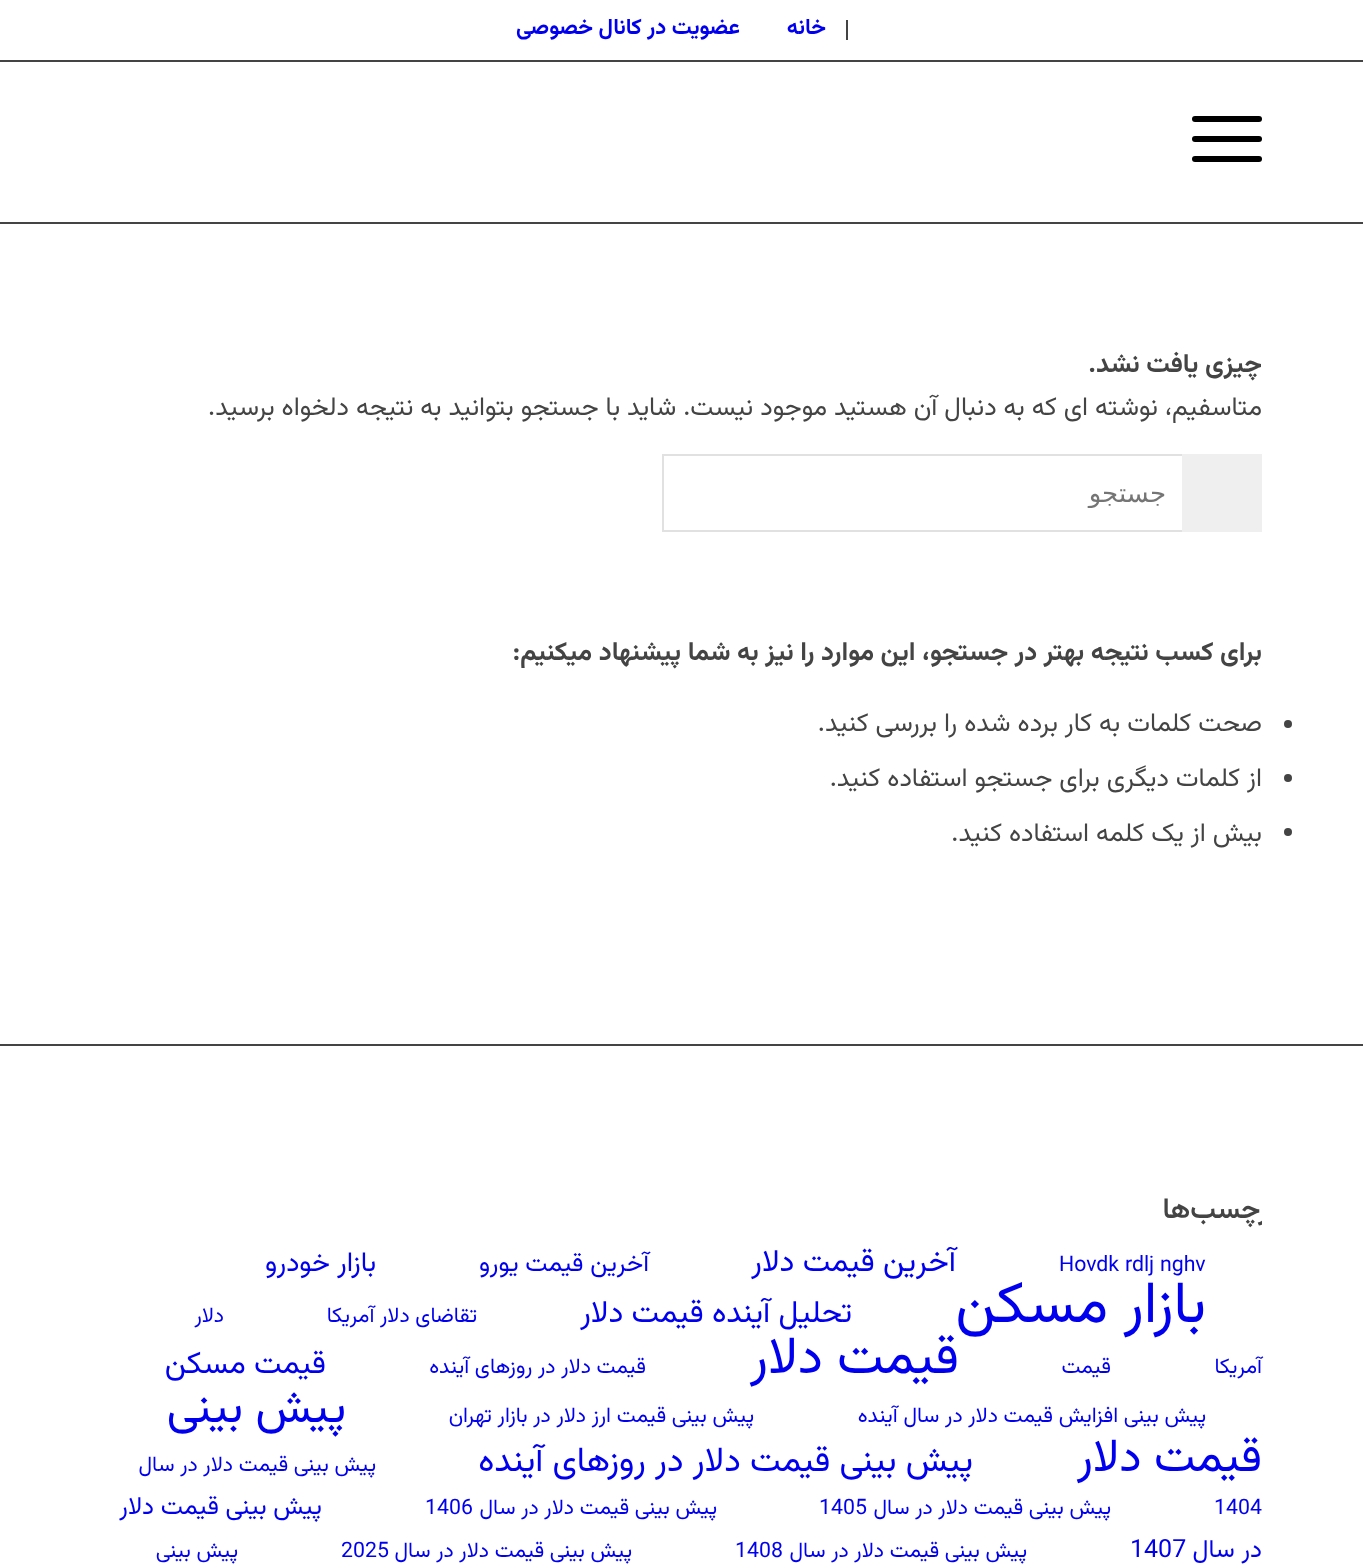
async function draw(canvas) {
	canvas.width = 1363;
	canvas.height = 1565;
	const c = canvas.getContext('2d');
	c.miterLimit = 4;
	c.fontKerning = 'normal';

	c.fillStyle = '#fff';
	c.fillRect(0, 0, 1363, 1565);
	c.fillStyle = '#444';
	c.fillRect(846, 20, 2, 20);
	c.direction = 'rtl';
	c.font = 'bold 22px Vazirmatn';
	c.fillStyle = '#00e';
	c.fillText('خانه', 826, 34);
	c.fillText('عضویت در کانال خصوصی', 740, 34);
	c.fillStyle = '#444';
	c.fillRect(0, 60, 1363, 2);
	c.fillRect(0, 222, 1363, 2);
	c.fillStyle = '#000';
	c.beginPath();
	c.roundRect(1192, 136, 70, 6, 3);
	c.fill();
	c.beginPath();
	c.roundRect(1192, 116, 70, 6, 3);
	c.fill();
	c.beginPath();
	c.roundRect(1192, 156, 70, 6, 3);
	c.fill();
	c.font = 'bold 26px Vazirmatn';
	c.fillStyle = '#444';
	c.fillText('چیزی یافت نشد.', 1262, 372);
	c.font = '26px Vazirmatn';
	c.fillText('متاسفیم، نوشته ای که به دنبال آن هستید موجود نیست. شاید با جستجو بتوانید به نتیجه دلخواه برسید.', 1262, 415);
	c.strokeStyle = '#e1e1e1';
	c.lineWidth = 2;
	c.strokeRect(663, 455, 598, 76);
	c.fillStyle = '#efefef';
	c.fillRect(1182, 454, 80, 78);
	c.save();
	c.beginPath();
	c.rect(674, 478, 492, 30);
	c.clip();
	c.font = '26px DejaVu Sans';
	c.fillStyle = '#757575';
	c.fillText('جستجو', 1166, 502);
	c.restore();
	c.font = 'bold 26px Vazirmatn';
	c.fillStyle = '#444';
	c.fillText('برای کسب نتیجه بهتر در جستجو، این موارد را نیز به شما پیشنهاد میکنیم:', 1262, 660);
	c.beginPath();
	c.arc(1288, 724, 4, 0, 2 * Math.PI);
	c.fill();
	c.font = '26px Vazirmatn';
	c.fillText('صحت کلمات به کار برده شده را بررسی کنید.', 1262, 731);
	c.beginPath();
	c.arc(1288, 778, 4, 0, 2 * Math.PI);
	c.fill();
	c.fillText('از کلمات دیگری برای جستجو استفاده کنید.', 1262, 786);
	c.beginPath();
	c.arc(1288, 832, 4, 0, 2 * Math.PI);
	c.fill();
	c.fillText('بیش از یک کلمه استفاده کنید.', 1262, 841);
	c.fillRect(0, 1044, 1363, 2);
	c.save();
	c.beginPath();
	c.rect(102, 1196, 1160, 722);
	c.clip();
	c.letterSpacing = '2px';
	c.font = '600 28.5px Vazirmatn';
	c.fillText('برچسب‌ها', 1278, 1218);
	c.restore();
	c.direction = 'ltr';
	c.font = '21.3px Vazirmatn';
	c.fillStyle = '#00e';
	c.fillText('Hovdk rdlj nghv', 1059, 1271);
	c.direction = 'rtl';
	c.font = '31px Vazirmatn';
	c.fillText('آخرین قیمت دلار', 956, 1271);
	c.font = '25px Vazirmatn';
	c.fillText('آخرین قیمت یورو', 649, 1271);
	c.font = '27.5px Vazirmatn';
	c.fillText('بازار خودرو', 376, 1271);
	c.font = '58.5px Vazirmatn';
	c.fillText('بازار مسکن', 1206, 1322);
	c.font = '31px Vazirmatn';
	c.fillText('تحلیل آینده قیمت دلار', 852, 1322);
	c.font = '21.3px Vazirmatn';
	for (const [text, x, y] of [
		['تقاضای دلار آمریکا', 477, 1322],
		['دلار', 224, 1322],
		['آمریکا', 1262, 1373],
		['قیمت', 1111, 1373],
	]) {
		c.fillText(text, x, y);
	}
	c.font = '52.5px Vazirmatn';
	c.fillText('قیمت دلار', 959, 1373);
	c.font = '21.3px Vazirmatn';
	c.fillText('قیمت دلار در روزهای آینده', 646, 1373);
	c.font = '31px Vazirmatn';
	c.fillText('قیمت مسکن', 326, 1373);
	c.font = '21.3px Vazirmatn';
	c.fillText('پیش بینی افزایش قیمت دلار در سال آینده', 1206, 1422);
	c.fillText('پیش بینی قیمت ارز دلار در بازار تهران', 754, 1422);
	c.font = '46.5px Vazirmatn';
	c.fillText('پیش بینی', 346, 1422);
	c.fillText('قیمت دلار', 1262, 1471);
	c.font = '34.6px Vazirmatn';
	c.fillText('پیش بینی قیمت دلار در روزهای آینده', 973, 1471);
	c.font = '21.3px Vazirmatn';
	c.fillText('پیش بینی قیمت دلار در سال', 376, 1471);
	c.direction = 'ltr';
	c.fillText('1404', 1214, 1514);
	c.direction = 'rtl';
	c.fillText('پیش بینی قیمت دلار در سال', 1111, 1514);
	c.direction = 'ltr';
	c.fillText('1405', 819, 1514);
	c.direction = 'rtl';
	c.fillText('پیش بینی قیمت دلار در سال', 717, 1514);
	c.direction = 'ltr';
	c.fillText('1406', 425, 1514);
	c.direction = 'rtl';
	c.font = '25px Vazirmatn';
	c.fillText('پیش بینی قیمت دلار', 322, 1514);
	c.fillText('در سال', 1262, 1557);
	c.direction = 'ltr';
	c.fillText('1407', 1130, 1557);
	c.direction = 'rtl';
	c.font = '21.3px Vazirmatn';
	c.fillText('پیش بینی قیمت دلار در سال', 1027, 1557);
	c.direction = 'ltr';
	c.fillText('1408', 735, 1557);
	c.direction = 'rtl';
	c.fillText('پیش بینی قیمت دلار در سال', 632, 1557);
	c.direction = 'ltr';
	c.fillText('2025', 341, 1557);
	c.direction = 'rtl';
	c.fillText('پیش بینی', 238, 1557);
}

draw(document.querySelector('canvas'));
